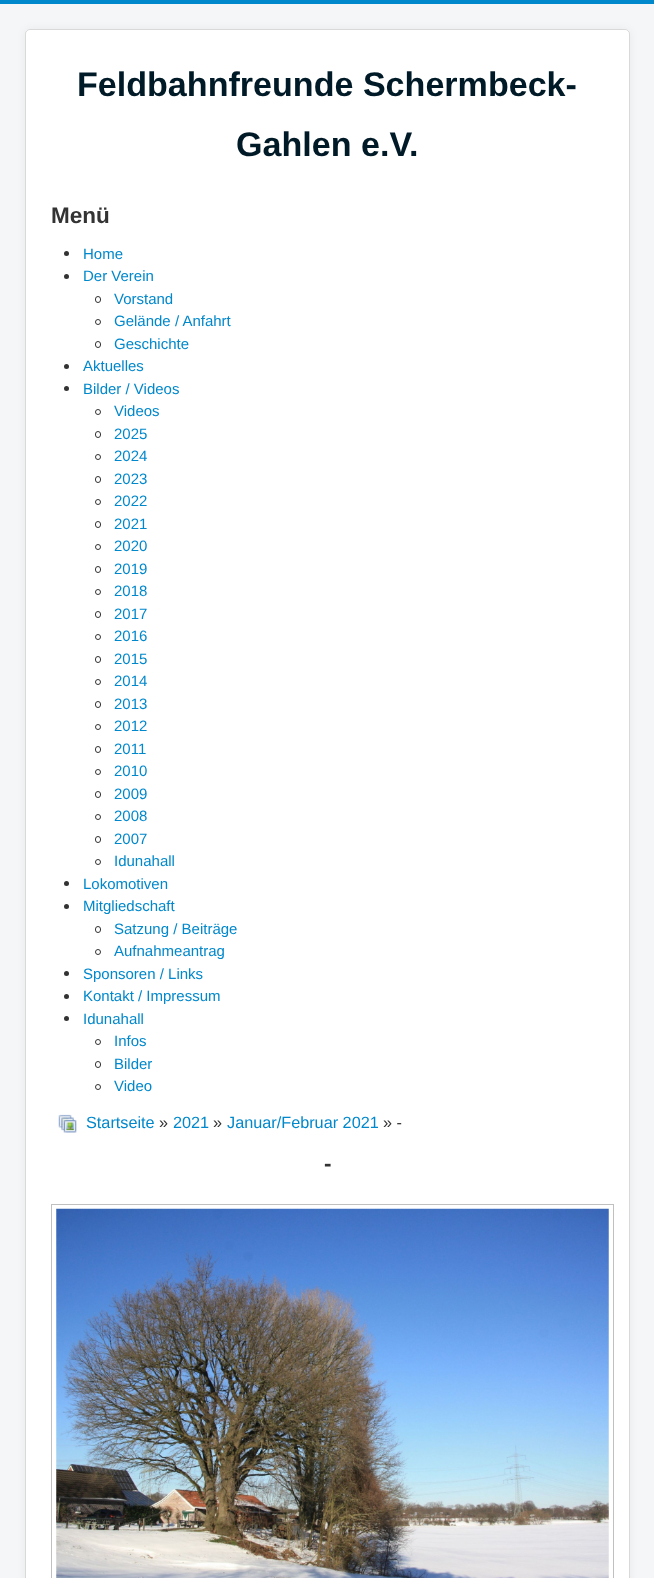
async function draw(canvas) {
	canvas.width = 654;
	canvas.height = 1578;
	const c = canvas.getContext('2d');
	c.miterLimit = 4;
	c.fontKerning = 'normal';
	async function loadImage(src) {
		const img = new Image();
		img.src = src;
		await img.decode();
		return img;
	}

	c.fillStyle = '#f4f6f7';
	c.fillRect(0, 0, 654, 1578);
	c.fillStyle = '#08c';
	c.fillRect(0, 0, 654, 4);
	c.fillStyle = '#0000000d';
	c.filter = 'blur(4px)';
	c.beginPath();
	c.roundRect(25, 29, 605, 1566, 5);
	c.fill();
	c.filter = 'none';
	c.fillStyle = '#fff';
	c.beginPath();
	c.roundRect(25, 29, 605, 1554, 5);
	c.fill();
	c.beginPath();
	c.roundRect(25.5, 29.5, 604, 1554, 4.5);
	c.strokeStyle = '#00000026';
	c.stroke();
	c.font = 'bold 34.1px Liberation Sans';
	c.fillStyle = '#001a27';
	c.fillText('Feldbahnfreunde Schermbeck-', 77, 96);
	c.fillText('Gahlen e.V.', 236, 156);
	c.font = 'bold 22.5px Liberation Sans';
	c.fillStyle = '#333';
	c.fillText('Menü', 51, 223);
	c.beginPath();
	c.arc(66.5, 253.5, 2.5, 0, 2 * Math.PI);
	c.fill();
	c.font = '15px Liberation Sans';
	c.fillStyle = '#08c';
	c.fillText('Home', 83, 259);
	c.fillStyle = '#333';
	c.beginPath();
	c.arc(66.5, 276.5, 2.5, 0, 2 * Math.PI);
	c.fill();
	c.fillStyle = '#08c';
	c.fillText('Der Verein', 83, 281);
	c.beginPath();
	c.roundRect(95.5, 296.5, 5, 6, 2.5);
	c.strokeStyle = '#333';
	c.stroke();
	c.fillText('Vorstand', 114, 304);
	c.beginPath();
	c.arc(98, 322, 2.5, 0, 2 * Math.PI);
	c.stroke();
	c.fillText('Gelände / Anfahrt', 114, 326);
	c.beginPath();
	c.roundRect(95.5, 341.5, 5, 6, 2.5);
	c.stroke();
	c.fillText('Geschichte', 114, 349);
	c.fillStyle = '#333';
	c.beginPath();
	c.arc(66.5, 366.5, 2.5, 0, 2 * Math.PI);
	c.fill();
	c.fillStyle = '#08c';
	c.fillText('Aktuelles', 83, 371);
	c.fillStyle = '#333';
	c.beginPath();
	c.arc(66.5, 388.5, 2.5, 0, 2 * Math.PI);
	c.fill();
	c.fillStyle = '#08c';
	c.fillText('Bilder / Videos', 83, 394);
	c.beginPath();
	c.arc(98, 412, 2.5, 0, 2 * Math.PI);
	c.stroke();
	c.fillText('Videos', 114, 416);
	c.beginPath();
	c.roundRect(95.5, 431.5, 5, 6, 2.5);
	c.stroke();
	c.fillText('2025', 114, 439);
	c.beginPath();
	c.arc(98, 457, 2.5, 0, 2 * Math.PI);
	c.stroke();
	c.fillText('2024', 114, 461);
	c.beginPath();
	c.roundRect(95.5, 476.5, 5, 6, 2.5);
	c.stroke();
	c.fillText('2023', 114, 484);
	c.beginPath();
	c.arc(98, 502, 2.5, 0, 2 * Math.PI);
	c.stroke();
	c.fillText('2022', 114, 506);
	c.beginPath();
	c.roundRect(95.5, 521.5, 5, 6, 2.5);
	c.stroke();
	c.fillText('2021', 114, 529);
	c.beginPath();
	c.arc(98, 547, 2.5, 0, 2 * Math.PI);
	c.stroke();
	c.fillText('2020', 114, 551);
	c.beginPath();
	c.roundRect(95.5, 566.5, 5, 6, 2.5);
	c.stroke();
	c.fillText('2019', 114, 574);
	c.beginPath();
	c.arc(98, 592, 2.5, 0, 2 * Math.PI);
	c.stroke();
	c.fillText('2018', 114, 596);
	c.beginPath();
	c.roundRect(95.5, 611.5, 5, 6, 2.5);
	c.stroke();
	c.fillText('2017', 114, 619);
	c.beginPath();
	c.arc(98, 637, 2.5, 0, 2 * Math.PI);
	c.stroke();
	c.fillText('2016', 114, 641);
	c.beginPath();
	c.roundRect(95.5, 656.5, 5, 6, 2.5);
	c.stroke();
	c.fillText('2015', 114, 664);
	c.beginPath();
	c.arc(98, 682, 2.5, 0, 2 * Math.PI);
	c.stroke();
	c.fillText('2014', 114, 686);
	c.beginPath();
	c.roundRect(95.5, 701.5, 5, 6, 2.5);
	c.stroke();
	c.fillText('2013', 114, 709);
	c.beginPath();
	c.arc(98, 727, 2.5, 0, 2 * Math.PI);
	c.stroke();
	c.fillText('2012', 114, 731);
	c.beginPath();
	c.roundRect(95.5, 746.5, 5, 6, 2.5);
	c.stroke();
	c.fillText('2011', 114, 754);
	c.beginPath();
	c.arc(98, 772, 2.5, 0, 2 * Math.PI);
	c.stroke();
	c.fillText('2010', 114, 776);
	c.beginPath();
	c.roundRect(95.5, 791.5, 5, 6, 2.5);
	c.stroke();
	c.fillText('2009', 114, 799);
	c.beginPath();
	c.arc(98, 817, 2.5, 0, 2 * Math.PI);
	c.stroke();
	c.fillText('2008', 114, 821);
	c.beginPath();
	c.roundRect(95.5, 836.5, 5, 6, 2.5);
	c.stroke();
	c.fillText('2007', 114, 844);
	c.beginPath();
	c.arc(98, 862, 2.5, 0, 2 * Math.PI);
	c.stroke();
	c.fillText('Idunahall', 114, 866);
	c.fillStyle = '#333';
	c.beginPath();
	c.arc(66.5, 883.5, 2.5, 0, 2 * Math.PI);
	c.fill();
	c.fillStyle = '#08c';
	c.fillText('Lokomotiven', 83, 889);
	c.fillStyle = '#333';
	c.beginPath();
	c.arc(66.5, 906.5, 2.5, 0, 2 * Math.PI);
	c.fill();
	c.fillStyle = '#08c';
	c.fillText('Mitgliedschaft', 83, 911);
	c.beginPath();
	c.roundRect(95.5, 926.5, 5, 6, 2.5);
	c.stroke();
	c.fillText('Satzung / Beiträge', 114, 934);
	c.beginPath();
	c.arc(98, 952, 2.5, 0, 2 * Math.PI);
	c.stroke();
	c.fillText('Aufnahmeantrag', 114, 956);
	c.fillStyle = '#333';
	c.beginPath();
	c.arc(66.5, 973.5, 2.5, 0, 2 * Math.PI);
	c.fill();
	c.fillStyle = '#08c';
	c.fillText('Sponsoren / Links', 83, 979);
	c.fillStyle = '#333';
	c.beginPath();
	c.arc(66.5, 996.5, 2.5, 0, 2 * Math.PI);
	c.fill();
	c.fillStyle = '#08c';
	c.fillText('Kontakt / Impressum', 83, 1001);
	c.fillStyle = '#333';
	c.beginPath();
	c.arc(66.5, 1018.5, 2.5, 0, 2 * Math.PI);
	c.fill();
	c.fillStyle = '#08c';
	c.fillText('Idunahall', 83, 1024);
	c.beginPath();
	c.arc(98, 1042, 2.5, 0, 2 * Math.PI);
	c.stroke();
	c.fillText('Infos', 114, 1046);
	c.beginPath();
	c.roundRect(95.5, 1061.5, 5, 6, 2.5);
	c.stroke();
	c.fillText('Bilder', 114, 1069);
	c.beginPath();
	c.arc(98, 1087, 2.5, 0, 2 * Math.PI);
	c.stroke();
	c.fillText('Video', 114, 1091);
	c.drawImage(await loadImage('img1.png'), 58, 1114, 19, 19);
	c.font = '16.25px Liberation Sans';
	c.fillText('Startseite', 86, 1128);
	c.fillStyle = '#333';
	c.fillText('»', 159, 1128);
	c.fillStyle = '#08c';
	c.fillText('2021', 173, 1128);
	c.fillStyle = '#333';
	c.fillText('»', 213, 1128);
	c.fillStyle = '#08c';
	c.fillText('Januar/Februar 2021', 227, 1128);
	c.fillStyle = '#333';
	c.fillText('» -', 383, 1128);
	c.font = 'bold 22.5px Liberation Sans';
	c.fillText('-', 324, 1171);
	c.strokeStyle = '#c0c0c0';
	c.strokeRect(51.5, 1204.5, 562, 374);
	c.drawImage(await loadImage('img2.png'), 56, 1208, 553, 370);
}

draw(document.querySelector('canvas'));
